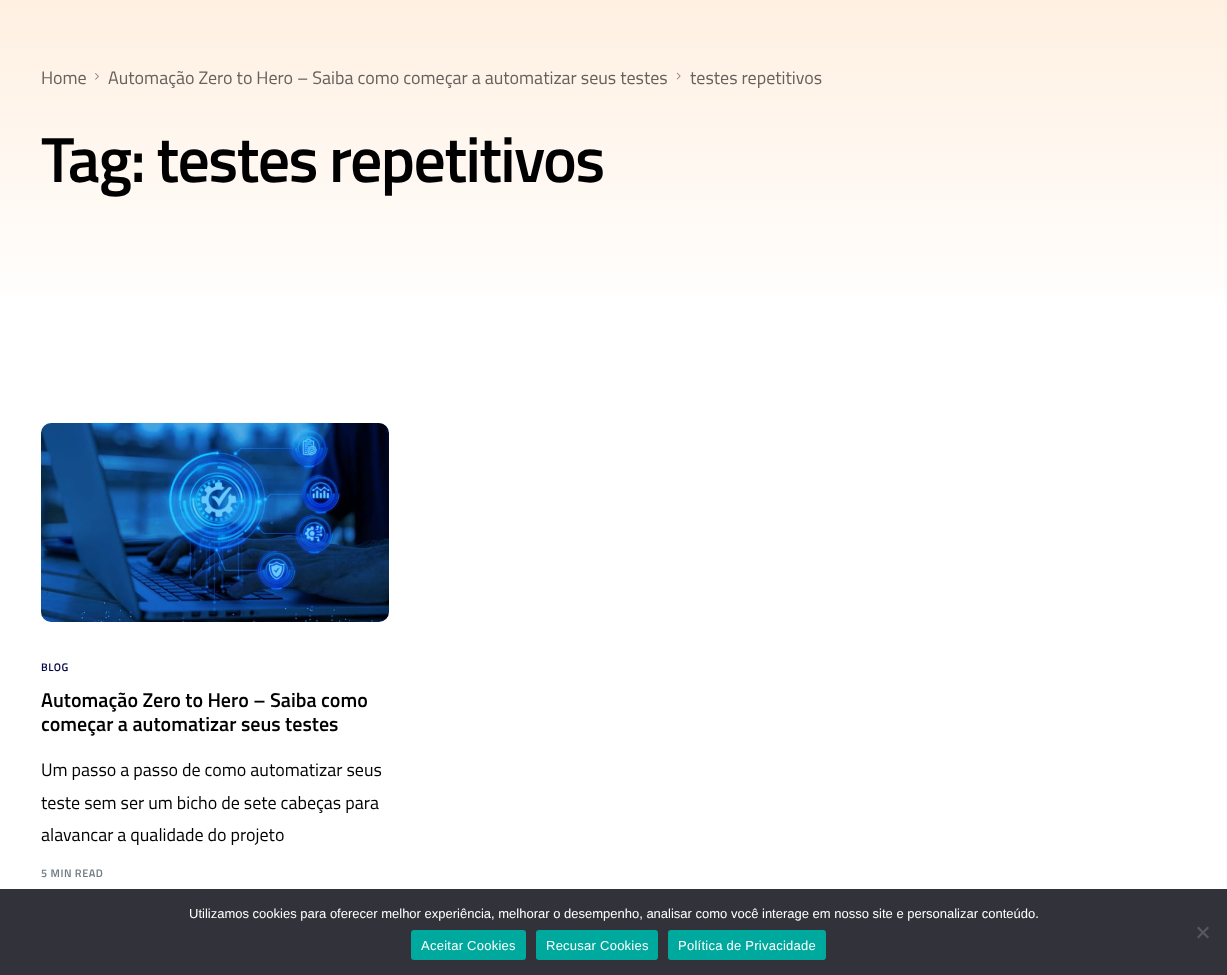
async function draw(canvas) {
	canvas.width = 1227;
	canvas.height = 975;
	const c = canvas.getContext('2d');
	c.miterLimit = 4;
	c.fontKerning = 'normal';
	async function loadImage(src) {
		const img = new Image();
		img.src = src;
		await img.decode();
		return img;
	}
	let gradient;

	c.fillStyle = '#fff';
	c.fillRect(0, 0, 1227, 975);
	gradient = c.createLinearGradient(614, -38, 614, 323);
	gradient.addColorStop(0, '#ffeede');
	gradient.addColorStop(1, '#fff');
	c.fillStyle = gradient;
	c.fillRect(0, 0, 1227, 296);
	c.font = '18px Titillium Web';
	c.fillStyle = '#66615d';
	c.fillText('Home', 41, 84);
	c.drawImage(await loadImage('img1.png'), 95, 73, 4, 7);
	c.fillText('Automação Zero to Hero – Saiba como começar a automatizar seus testes', 108, 84);
	c.drawImage(await loadImage('img2.png'), 676, 72, 5, 8);
	c.fillText('testes repetitivos', 690, 84);
	c.letterSpacing = '-1.75px';
	c.font = '600 64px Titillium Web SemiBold';
	c.fillStyle = '#000';
	c.fillText('Tag: testes repetitivos', 41, 182);
	c.drawImage(await loadImage('img3.png'), 41, 423, 348, 199);
	c.letterSpacing = '0.5px';
	c.font = '600 11px Titillium Web SemiBold';
	c.fillStyle = '#040843';
	c.fillText('BLOG', 41, 671);
	c.letterSpacing = '0px';
	c.font = '600 20px Titillium Web SemiBold';
	c.fillStyle = '#000';
	c.fillText('Automação Zero to Hero – Saiba como', 41, 707);
	c.fillText('começar a automatizar seus testes', 41, 731);
	c.font = '18px Titillium Web';
	for (const [text, x, y] of [
		['Um passo a passo de como automatizar seus', 41, 776],
		['teste sem ser um bicho de sete cabeças para', 41, 809],
		['alavancar a qualidade do projeto', 41, 841],
	]) {
		c.fillText(text, x, y);
	}
	c.letterSpacing = '0.5px';
	c.font = '600 11px Titillium Web SemiBold';
	c.fillStyle = '#6e7a84';
	c.fillText('5 MIN READ', 41, 877);
	c.fillStyle = '#32323a';
	c.fillRect(0, 889, 1227, 86);
	c.letterSpacing = '0px';
	c.font = '13px Liberation Sans';
	c.fillStyle = '#fff';
	c.fillText('Utilizamos cookies para oferecer melhor experiência, melhorar o desempenho, analisar como você interage em nosso site e personalizar conteúdo.', 189, 918);
	c.fillStyle = '#59595d';
	c.beginPath();
	c.moveTo(1207.5, 926.5);
	c.lineTo(1209, 928);
	c.lineTo(1198.5, 938.5);
	c.lineTo(1197, 937);
	c.closePath();
	c.fill();
	c.beginPath();
	c.moveTo(1197, 928);
	c.lineTo(1198.5, 926.5);
	c.lineTo(1209, 937);
	c.lineTo(1207.5, 938.5);
	c.closePath();
	c.fill();
	c.fillStyle = '#00a99d';
	c.beginPath();
	c.roundRect(411, 930, 115, 30, 3);
	c.fill();
	c.letterSpacing = '0.25px';
	c.fillStyle = '#fff';
	c.fillText('Aceitar Cookies', 421, 950);
	c.fillStyle = '#00a99d';
	c.beginPath();
	c.roundRect(536, 930, 122, 30, 3);
	c.fill();
	c.fillStyle = '#fff';
	c.fillText('Recusar Cookies', 546, 950);
	c.fillStyle = '#00a99d';
	c.beginPath();
	c.roundRect(668, 930, 158, 30, 3);
	c.fill();
	c.fillStyle = '#fff';
	c.fillText('Política de Privacidade', 678, 950);
}

draw(document.querySelector('canvas'));
